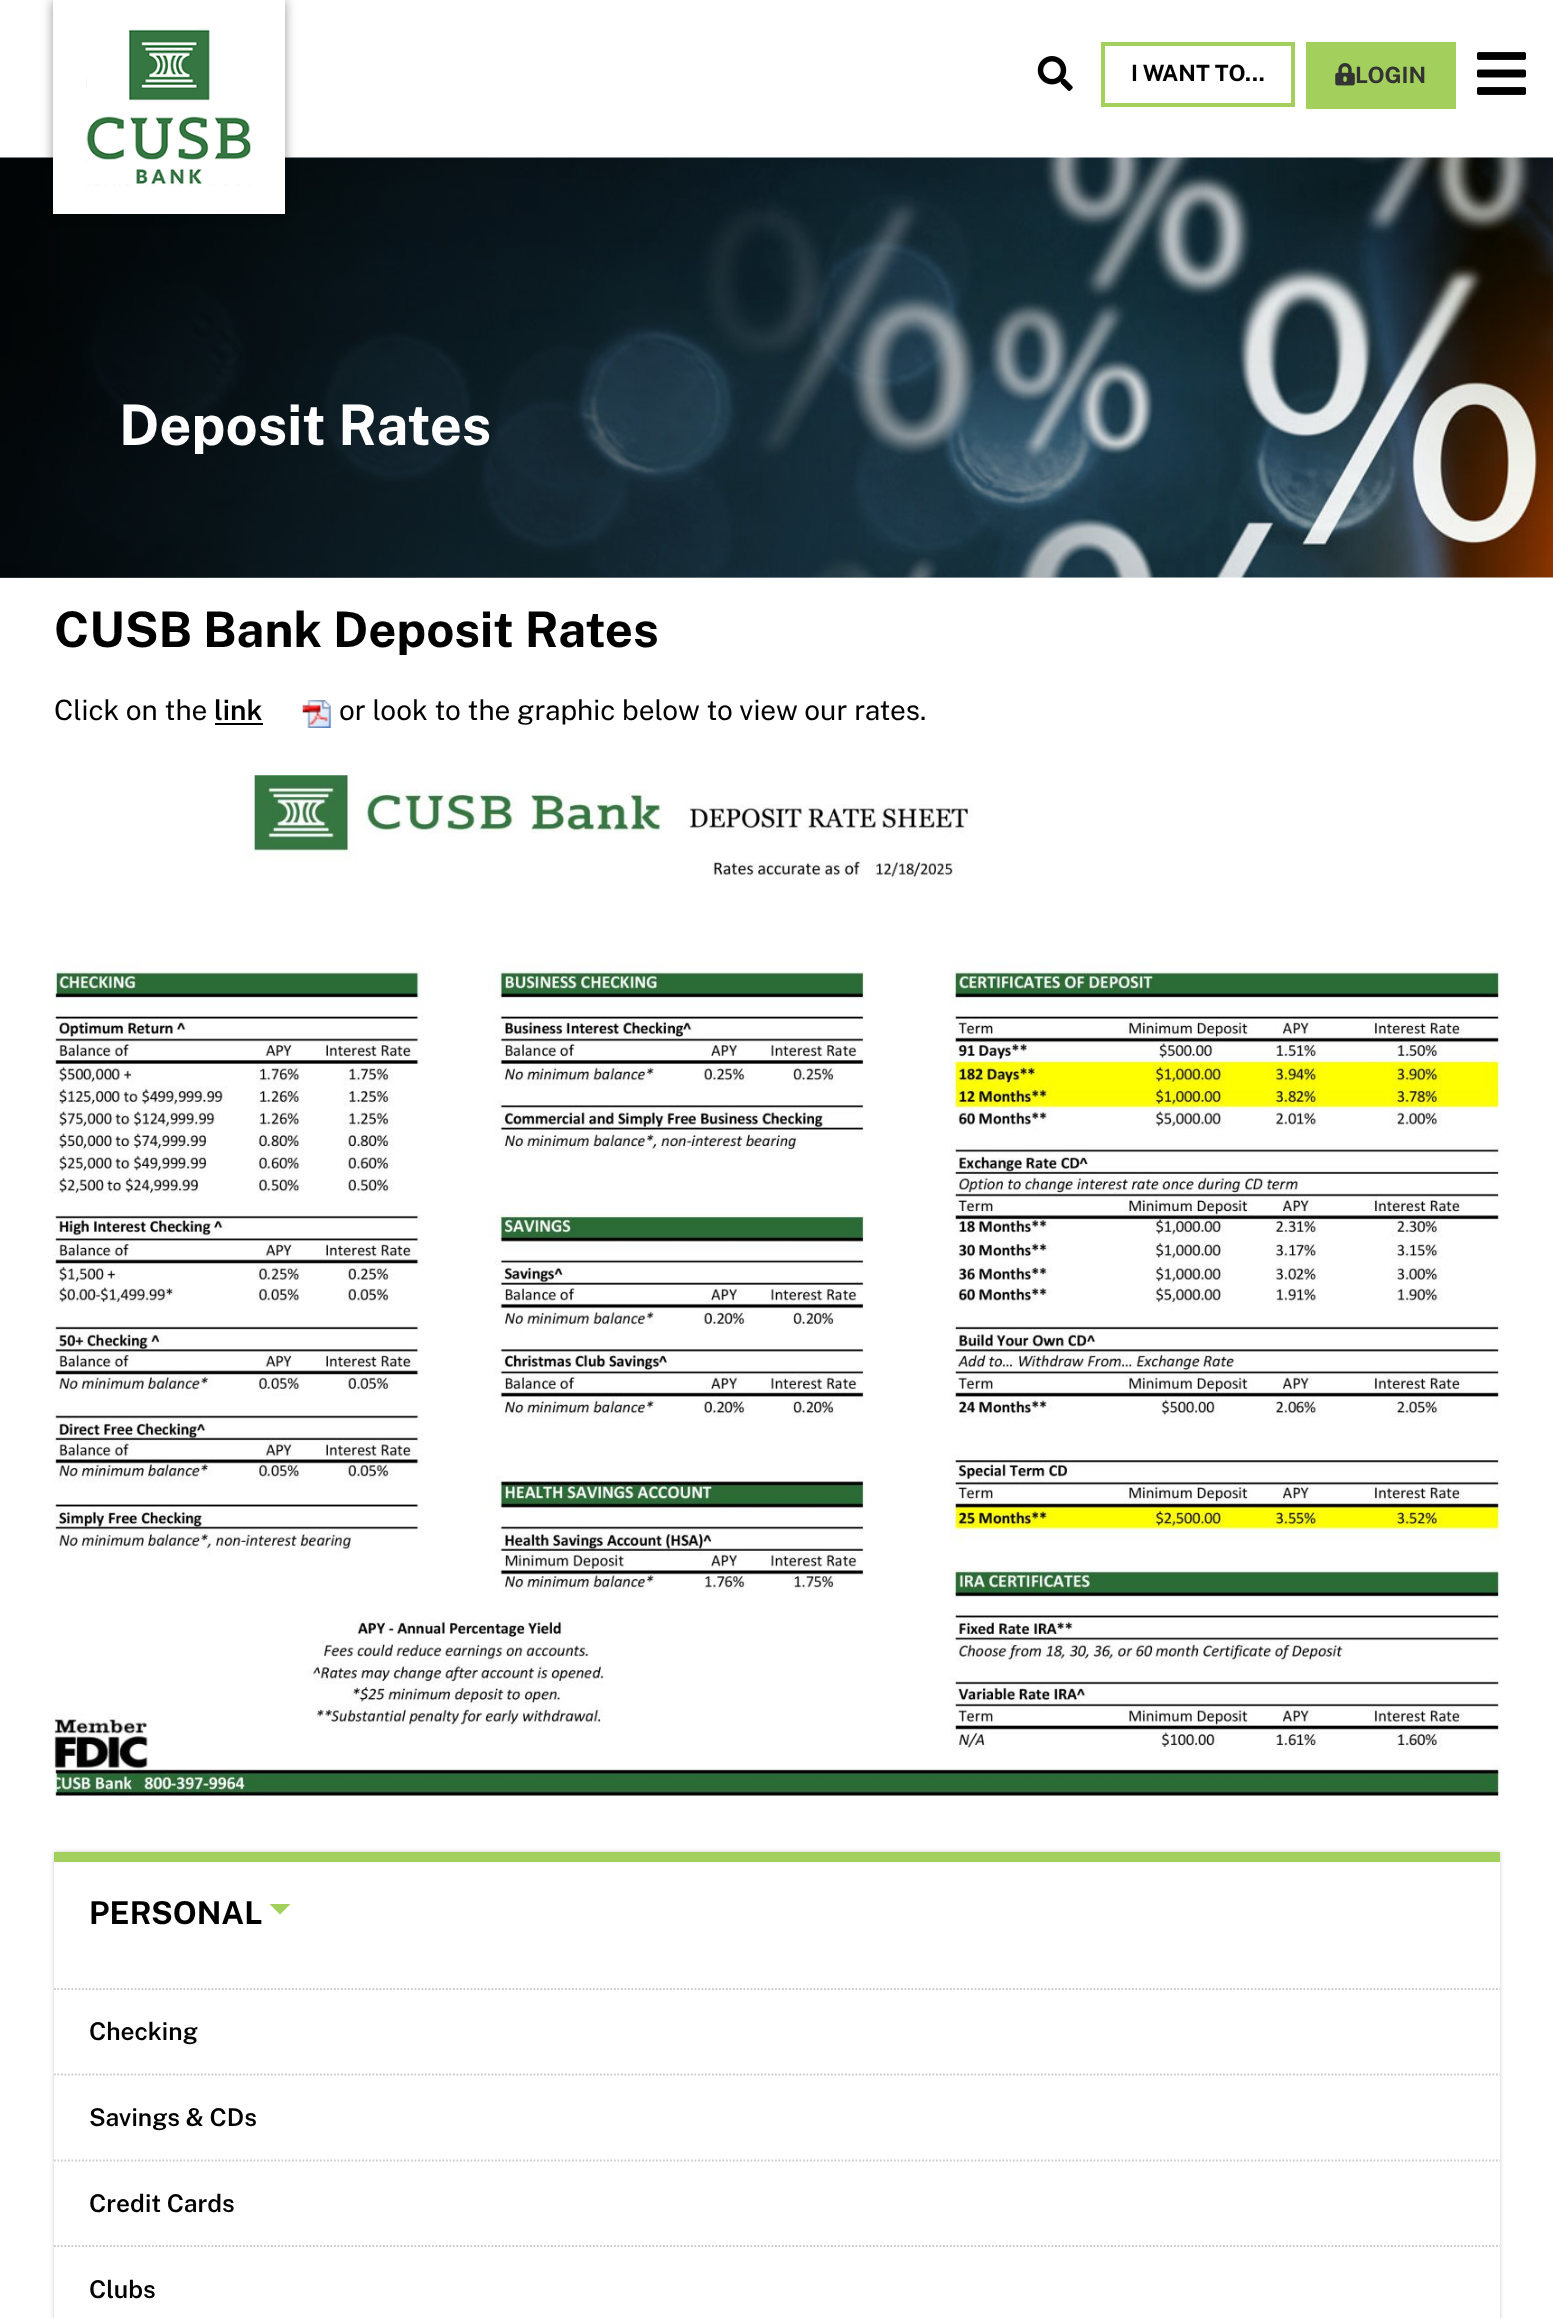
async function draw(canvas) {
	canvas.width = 1553;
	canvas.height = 2318;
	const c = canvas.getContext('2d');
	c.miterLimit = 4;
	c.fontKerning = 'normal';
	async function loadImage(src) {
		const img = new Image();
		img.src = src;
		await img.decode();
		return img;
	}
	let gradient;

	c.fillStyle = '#fff';
	c.fillRect(0, 0, 1553, 2318);
	c.drawImage(await loadImage('img5.png'), 0, 157, 1553, 421);
	gradient = c.createLinearGradient(1243, 367, 0, 368);
	gradient.addColorStop(0, '#00000000');
	gradient.addColorStop(1, '#000000b3');
	c.fillStyle = gradient;
	c.fillRect(0, 158, 1205, 420);
	c.fillStyle = '#00000066';
	c.filter = 'blur(6px)';
	c.beginPath();
	c.rect(53, 0, 232, 214);
	c.fill();
	c.filter = 'none';
	c.fillStyle = '#fff';
	c.fillRect(53, 0, 232, 214);
	c.drawImage(await loadImage('img1.png'), 86, 28, 165, 158);
	c.drawImage(await loadImage('img2.png'), 1037, 56, 36, 35);
	c.strokeStyle = '#a3cf5d';
	c.lineWidth = 4;
	c.strokeRect(1103, 44, 190, 61);
	c.font = 'bold 22.5px Public Sans';
	c.fillStyle = '#000';
	c.fillText('I WANT TO...', 1131, 81);
	c.fillStyle = '#a3cf5d';
	c.fillRect(1306, 42, 150, 67);
	c.drawImage(await loadImage('img3.png'), 1335, 63, 20, 23);
	c.fillStyle = '#333';
	c.fillText('LOGIN', 1355, 83);
	c.drawImage(await loadImage('img4.png'), 1477, 52, 49, 43);
	c.font = 'bold 56px Public Sans';
	c.fillStyle = '#fff';
	c.fillText('Deposit Rates', 119, 445);
	c.font = 'bold 49px Public Sans';
	c.fillStyle = '#000';
	c.fillText('CUSB Bank Deposit Rates', 54, 647);
	c.font = '28px Public Sans';
	c.fillText('Click on the', 54, 720);
	c.font = '600 28px Public Sans';
	c.fillText('link', 214, 720);
	c.fillRect(215, 723, 48, 2);
	c.drawImage(await loadImage('img6.png'), 302, 700, 29, 28);
	c.font = '28px Public Sans';
	c.fillText('or look to the graphic below to view our rates.', 339, 720);
	c.drawImage(await loadImage('img7.png'), 54, 775, 1446, 1021);
	c.fillStyle = '#00000033';
	c.filter = 'blur(2px)';
	c.beginPath();
	c.rect(54, 1852, 1446, 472);
	c.fill();
	c.filter = 'none';
	c.fillStyle = '#fff';
	c.fillRect(54, 1862, 1446, 456);
	c.fillStyle = '#a3cf5d';
	c.fillRect(54, 1852, 1446, 10);
	c.font = 'bold 31.5px Public Sans';
	c.fillStyle = '#000';
	c.fillText('PERSONAL', 89, 1924);
	c.fillStyle = '#a3cf5d';
	c.beginPath();
	c.moveTo(269.5, 1904);
	c.lineTo(290.5, 1904);
	c.lineTo(280, 1914.5);
	c.closePath();
	c.fill();
	c.beginPath();
	c.moveTo(54, 1989);
	c.lineTo(1500, 1989);
	c.strokeStyle = '#ccc';
	c.lineWidth = 1.8;
	c.setLineDash([1.75, 1.75]);
	c.stroke();
	c.font = '600 24.5px Public Sans';
	c.fillStyle = '#000';
	c.fillText('Checking', 89, 2040);
	c.beginPath();
	c.moveTo(54, 2074.5);
	c.lineTo(1500, 2074.5);
	c.stroke();
	c.fillText('Savings & CDs', 89, 2126);
	c.beginPath();
	c.moveTo(54, 2160.5);
	c.lineTo(1500, 2160.5);
	c.stroke();
	c.fillText('Credit Cards', 89, 2212);
	c.beginPath();
	c.moveTo(54, 2246);
	c.lineTo(1500, 2246);
	c.stroke();
	c.fillText('Clubs', 89, 2298);
}

draw(document.querySelector('canvas'));
